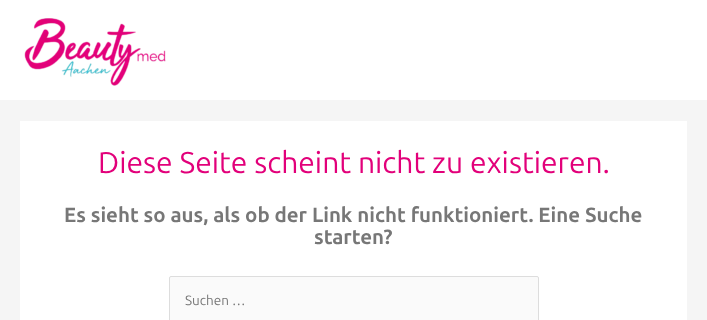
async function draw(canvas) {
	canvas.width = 707;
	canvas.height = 320;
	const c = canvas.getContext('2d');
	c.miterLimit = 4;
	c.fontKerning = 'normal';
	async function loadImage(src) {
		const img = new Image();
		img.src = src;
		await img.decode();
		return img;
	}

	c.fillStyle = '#f5f5f5';
	c.fillRect(0, 0, 707, 320);
	c.fillStyle = '#fff';
	c.fillRect(0, 0, 707, 100);
	c.drawImage(await loadImage('img1.png'), 24, 18, 142, 68);
	c.fillRect(20, 121, 667, 199);
	c.font = '30px Ubuntu';
	c.fillStyle = '#e2007a';
	c.fillText('Diese Seite scheint nicht zu existieren.', 98, 173);
	c.font = 'bold 20.5px Ubuntu';
	c.fillStyle = '#777';
	c.fillText('Es sieht so aus, als ob der Link nicht funktioniert. Eine Suche', 64, 222);
	c.fillText('starten?', 314, 244);
	c.fillStyle = '#fafafa';
	c.beginPath();
	c.roundRect(169.5, 276.5, 369, 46, 1.5);
	c.fill();
	c.strokeStyle = '#ddd';
	c.stroke();
	c.font = '13.5px Ubuntu';
	c.fillStyle = '#777';
	c.fillText('Suchen …', 185, 305);
}

draw(document.querySelector('canvas'));
